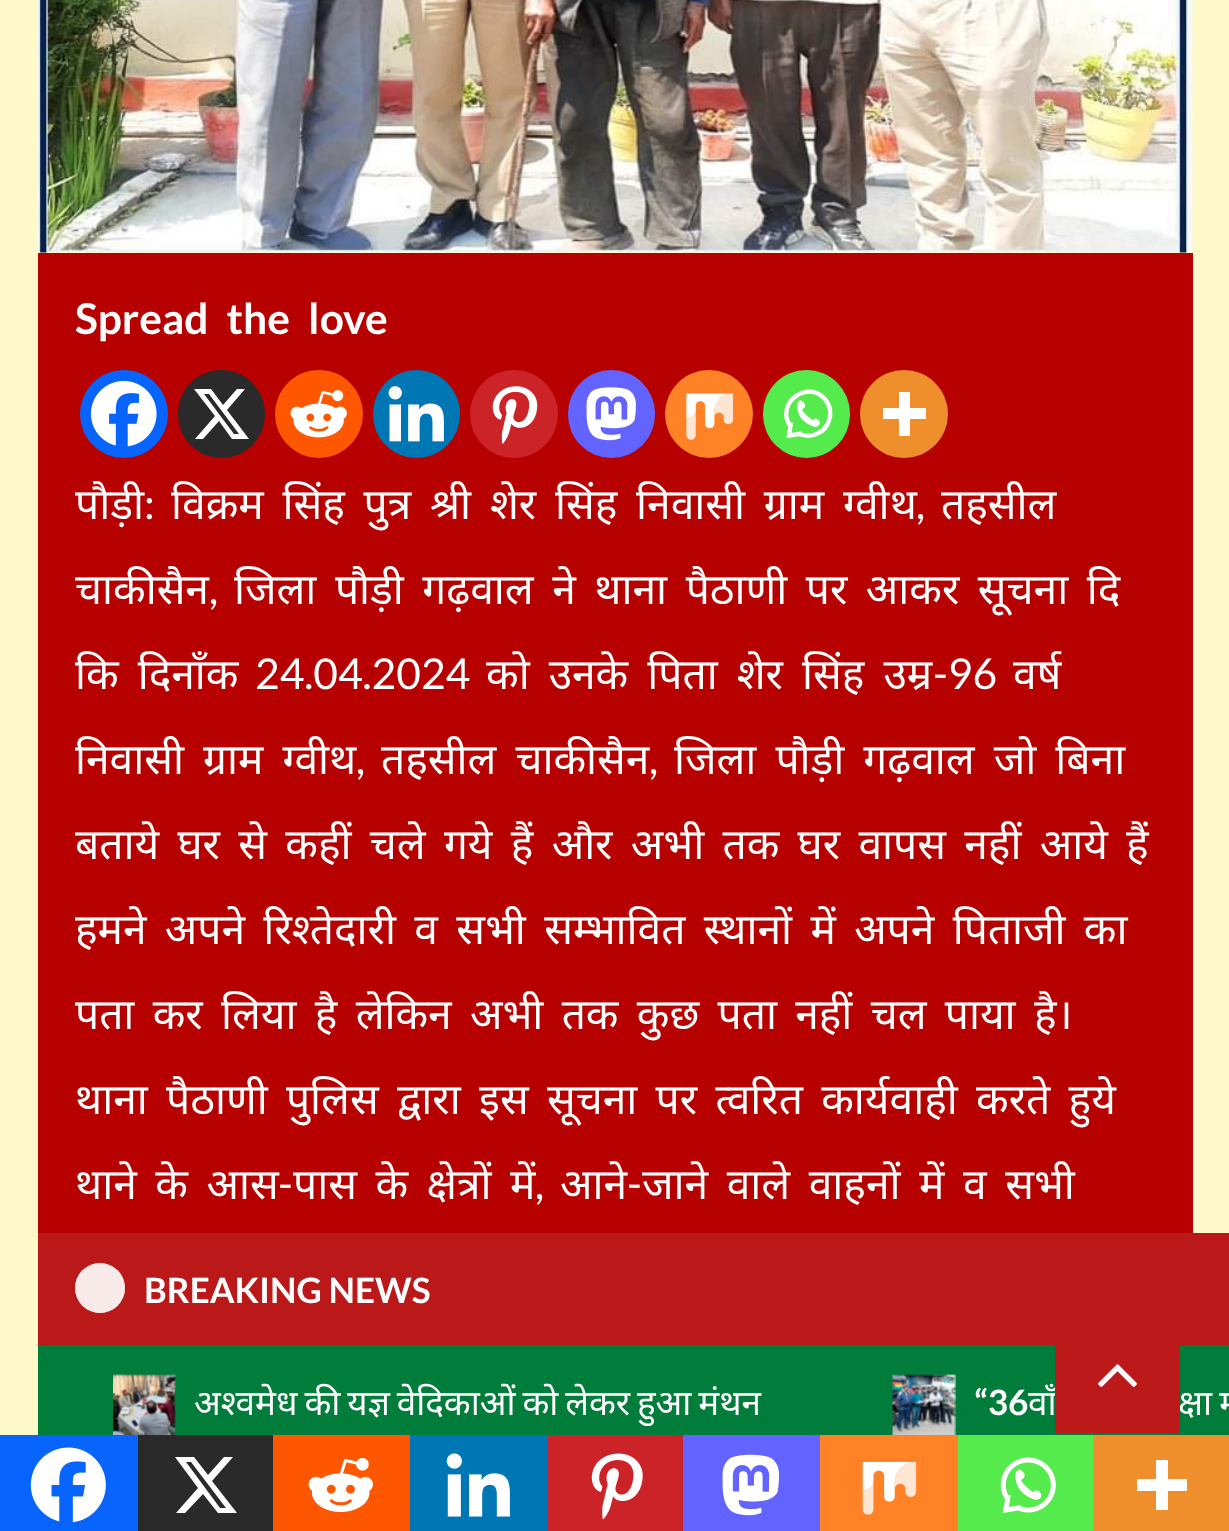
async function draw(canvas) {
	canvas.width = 1229;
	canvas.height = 1531;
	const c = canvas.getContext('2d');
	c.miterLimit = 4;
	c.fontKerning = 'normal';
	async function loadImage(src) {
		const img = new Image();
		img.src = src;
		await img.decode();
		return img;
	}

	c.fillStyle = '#fff9c9';
	c.fillRect(0, 0, 1229, 1531);
	c.drawImage(await loadImage('img1.png'), 37, 0, 1156, 253);
	c.fillStyle = '#b70100';
	c.fillRect(38, 253, 1155, 980);
	c.wordSpacing = '10px';
	c.font = 'bold 42.5px Lato';
	c.fillStyle = '#fff';
	c.fillText('Spread the love', 75, 334);
	c.fillStyle = '#0765fe';
	c.beginPath();
	c.arc(124, 414, 44, 0, 2 * Math.PI);
	c.fill();
	c.drawImage(await loadImage('img2.png'), 90, 380, 67, 67);
	c.fillStyle = '#2a2a2a';
	c.beginPath();
	c.roundRect(178, 370, 87, 88, 43.5);
	c.fill();
	c.fillStyle = '#fff';
	c.beginPath();
	c.moveTo(237, 389);
	c.lineTo(245, 389);
	c.lineTo(227, 410);
	c.lineTo(249, 439);
	c.lineTo(232, 439);
	c.lineTo(219, 421);
	c.lineTo(203, 439);
	c.lineTo(195, 439);
	c.lineTo(215, 416);
	c.lineTo(194, 389);
	c.lineTo(211, 389);
	c.lineTo(223, 405);
	c.closePath();
	c.moveTo(234, 434);
	c.lineTo(239, 434);
	c.lineTo(209, 394);
	c.lineTo(204, 394);
	c.closePath();
	c.fill();
	c.fillStyle = '#ff5700';
	c.beginPath();
	c.arc(319, 414, 44, 0, 2 * Math.PI);
	c.fill();
	c.drawImage(await loadImage('img3.png'), 290, 390, 57, 48);
	c.fillStyle = '#0077b5';
	c.beginPath();
	c.roundRect(373, 370, 87, 88, 43.5);
	c.fill();
	c.drawImage(await loadImage('img4.png'), 388, 386, 56, 56);
	c.fillStyle = '#cc2329';
	c.beginPath();
	c.arc(514, 414, 44, 0, 2 * Math.PI);
	c.fill();
	c.drawImage(await loadImage('img5.png'), 492, 386, 46, 58);
	c.fillStyle = '#6364ff';
	c.beginPath();
	c.roundRect(568, 370, 87, 88, 43.5);
	c.fill();
	c.drawImage(await loadImage('img6.png'), 586, 387, 50, 54);
	c.fillStyle = '#ff8226';
	c.beginPath();
	c.arc(709, 414, 44, 0, 2 * Math.PI);
	c.fill();
	c.drawImage(await loadImage('img7.png'), 686, 393, 48, 47);
	c.fillStyle = '#55eb4c';
	c.beginPath();
	c.roundRect(763, 370, 87, 88, 43.5);
	c.fill();
	c.beginPath();
	c.moveTo(801, 434.5);
	c.bezierCurveTo(812.5, 438.5, 825.5, 432, 829, 420.5);
	c.bezierCurveTo(831, 414.5, 830.5, 407.5, 827, 402);
	c.bezierCurveTo(811.5, 377, 773.5, 402, 790.5, 426.5);
	c.moveTo(791, 422.5);
	c.lineTo(789, 435.5);
	c.lineTo(802, 433.5);
	c.strokeStyle = '#fff';
	c.lineWidth = 4.4;
	c.stroke();
	c.fillStyle = '#fff';
	c.beginPath();
	c.moveTo(797.5, 403);
	c.bezierCurveTo(796, 414.5, 802, 422.5, 815, 427);
	c.bezierCurveTo(826, 424.5, 815, 414, 813, 420.5);
	c.bezierCurveTo(807, 416, 803.5, 412.5, 802, 409.5);
	c.bezierCurveTo(810.5, 405, 799.5, 398.5, 799.5, 400.5);
	c.fill();
	c.fillStyle = '#ee8e2d';
	c.beginPath();
	c.arc(904, 414, 44, 0, 2 * Math.PI);
	c.fill();
	c.fillStyle = '#fff';
	c.beginPath();
	c.moveTo(910, 408);
	c.lineTo(910, 392);
	c.lineTo(899, 392);
	c.lineTo(899, 408);
	c.lineTo(883, 408);
	c.lineTo(883, 419);
	c.lineTo(899, 419);
	c.lineTo(899, 436);
	c.lineTo(910, 436);
	c.lineTo(910, 419);
	c.lineTo(926, 419);
	c.lineTo(926, 408);
	c.closePath();
	c.fill('evenodd');
	c.wordSpacing = '0px';
	c.font = '42.5px Noto Sans';
	c.fillText('पौड़ी', 75, 519);
	c.font = '42.5px Lato';
	c.fillText(':', 144, 519);
	c.wordSpacing = '7.75px';
	c.font = '42.5px Noto Sans';
	c.fillText('विक्रम सिंह पुत्र श्री शेर सिंह निवासी ग्राम ग्वीथ', 171, 519);
	c.wordSpacing = '0px';
	c.font = '42.5px Lato';
	c.fillText(',', 916, 519);
	c.font = '42.5px Noto Sans';
	c.fillText('तहसील', 941, 519);
	c.fillText('चाकीसैन', 75, 604);
	c.font = '42.5px Lato';
	c.fillText(',', 209, 604);
	c.wordSpacing = '7.5px';
	c.font = '42.5px Noto Sans';
	c.fillText('जिला पौड़ी गढ़वाल ने थाना पैठाणी पर आकर सूचना दि', 234, 604);
	c.wordSpacing = '8px';
	c.fillText('कि दिनाँक', 75, 689);
	c.wordSpacing = '0px';
	c.font = '42.5px Lato';
	c.fillText('24.04.2024', 255, 689);
	c.wordSpacing = '8px';
	c.font = '42.5px Noto Sans';
	c.fillText('को उनके पिता शेर सिंह उम्र', 486, 689);
	c.wordSpacing = '0px';
	c.font = '42.5px Lato';
	c.fillText('-96', 933, 689);
	c.font = '42.5px Noto Sans';
	c.fillText('वर्ष', 1013, 689);
	c.wordSpacing = '8px';
	c.fillText('निवासी ग्राम ग्वीथ', 75, 774);
	c.wordSpacing = '0px';
	c.font = '42.5px Lato';
	c.fillText(',', 356, 774);
	c.wordSpacing = '8px';
	c.font = '42.5px Noto Sans';
	c.fillText('तहसील चाकीसैन', 381, 774);
	c.wordSpacing = '0px';
	c.font = '42.5px Lato';
	c.fillText(',', 649, 774);
	c.wordSpacing = '8px';
	c.font = '42.5px Noto Sans';
	c.fillText('जिला पौड़ी गढ़वाल जो बिना', 674, 774);
	c.wordSpacing = '7.25px';
	for (const [text, x, y] of [
		['बताये घर से कहीं चले गये हैं और अभी तक घर वापस नहीं आये हैं', 75, 859],
		['हमने अपने रिश्तेदारी व सभी सम्भावित स्थानों में अपने पिताजी का', 75, 944],
		['पता कर लिया है लेकिन अभी तक कुछ पता नहीं चल पाया है।', 75, 1029],
		['थाना पैठाणी पुलिस द्वारा इस सूचना पर त्वरित कार्यवाही करते हुये', 75, 1114],
	]) {
		c.fillText(text, x, y);
	}
	c.wordSpacing = '7.5px';
	c.fillText('थाने के आस', 75, 1199);
	c.wordSpacing = '0px';
	c.font = '42.5px Lato';
	c.fillText('-', 278, 1199);
	c.wordSpacing = '7.5px';
	c.font = '42.5px Noto Sans';
	c.fillText('पास के क्षेत्रों में', 293, 1199);
	c.wordSpacing = '0px';
	c.fillText('आने', 560, 1199);
	c.font = '42.5px Lato';
	c.fillText('-', 627, 1199);
	c.wordSpacing = '7.5px';
	c.font = '42.5px Noto Sans';
	c.fillText('जाने वाले वाहनों में व सभी', 642, 1199);
	c.wordSpacing = '0px';
	c.font = '42.5px Lato';
	c.fillText(',', 535, 1199);
	c.fillStyle = '#0765fe';
	c.fillRect(0, 1435, 138, 96);
	c.drawImage(await loadImage('img8.png'), 30, 1447, 76, 76);
	c.fillStyle = '#2a2a2a';
	c.fillRect(138, 1435, 135, 96);
	c.fillStyle = '#fff';
	c.beginPath();
	c.moveTo(224, 1457);
	c.lineTo(233, 1457);
	c.lineTo(212, 1481);
	c.lineTo(237, 1513);
	c.lineTo(218, 1513);
	c.lineTo(203, 1494);
	c.lineTo(185, 1513);
	c.lineTo(176, 1513);
	c.lineTo(198, 1488);
	c.lineTo(175, 1457);
	c.lineTo(194, 1457);
	c.lineTo(208, 1475);
	c.closePath();
	c.moveTo(220, 1508);
	c.lineTo(226, 1508);
	c.lineTo(191, 1462);
	c.lineTo(186, 1462);
	c.closePath();
	c.fill();
	c.fillStyle = '#ff5700';
	c.fillRect(273, 1435, 137, 96);
	c.drawImage(await loadImage('img9.png'), 308, 1458, 65, 54);
	c.fillStyle = '#0077b5';
	c.fillRect(410, 1435, 138, 96);
	c.drawImage(await loadImage('img10.png'), 446, 1453, 64, 64);
	c.fillStyle = '#cc2329';
	c.fillRect(548, 1435, 135, 96);
	c.drawImage(await loadImage('img11.png'), 591, 1453, 52, 67);
	c.fillStyle = '#6364ff';
	c.fillRect(683, 1435, 137, 96);
	c.drawImage(await loadImage('img12.png'), 722, 1454, 57, 62);
	c.fillStyle = '#ff8226';
	c.fillRect(820, 1435, 138, 96);
	c.drawImage(await loadImage('img13.png'), 862, 1461, 55, 54);
	c.fillStyle = '#55eb4c';
	c.fillRect(958, 1435, 135, 96);
	c.drawImage(await loadImage('img14.png'), 1000, 1457, 56, 56);
	c.fillStyle = '#ee8e2d';
	c.fillRect(1093, 1435, 136, 96);
	c.fillStyle = '#fff';
	c.beginPath();
	c.moveTo(1168, 1479);
	c.lineTo(1168, 1460);
	c.lineTo(1156, 1460);
	c.lineTo(1156, 1479);
	c.lineTo(1137, 1479);
	c.lineTo(1137, 1491);
	c.lineTo(1156, 1491);
	c.lineTo(1156, 1510);
	c.lineTo(1168, 1510);
	c.lineTo(1168, 1491);
	c.lineTo(1187, 1491);
	c.lineTo(1187, 1479);
	c.closePath();
	c.fill('evenodd');
	c.fillStyle = '#bb1919';
	c.fillRect(38, 1233, 1191, 112);
	c.fillStyle = '#ebbaba';
	c.beginPath();
	c.arc(100, 1288, 25, 0, 2 * Math.PI);
	c.fill();
	c.fillStyle = '#ffffffb3';
	c.beginPath();
	c.arc(100, 1288, 25, 0, 2 * Math.PI);
	c.fill();
	c.font = 'bold 35px Lato';
	c.fillStyle = '#fff';
	c.fillText('BREAKING NEWS', 144, 1303);
	c.fillStyle = '#007d3b';
	c.fillRect(38, 1345, 1191, 90);
	c.drawImage(await loadImage('img15.png'), 113, 1374, 63, 61);
	c.wordSpacing = '-2.25px';
	c.font = '35px Noto Sans';
	c.fillStyle = '#fff';
	c.fillText('अश्वमेध की यज्ञ वेदिकाओं को लेकर हुआ मंथन', 194, 1415);
	c.drawImage(await loadImage('img16.png'), 892, 1374, 64, 61);
	c.wordSpacing = '0px';
	c.font = 'bold 35px Lato';
	c.fillText('“36', 974, 1415);
	c.wordSpacing = '-2px';
	c.font = '35px Noto Sans';
	c.fillText('वाँ', 1028, 1415);
	c.fillText('क्षा म', 1178, 1415);
	c.fillStyle = '#bb191a';
	c.fillRect(1055, 1345, 125, 88);
	c.drawImage(await loadImage('img17.png'), 1098, 1364, 39, 23);
}

draw(document.querySelector('canvas'));
